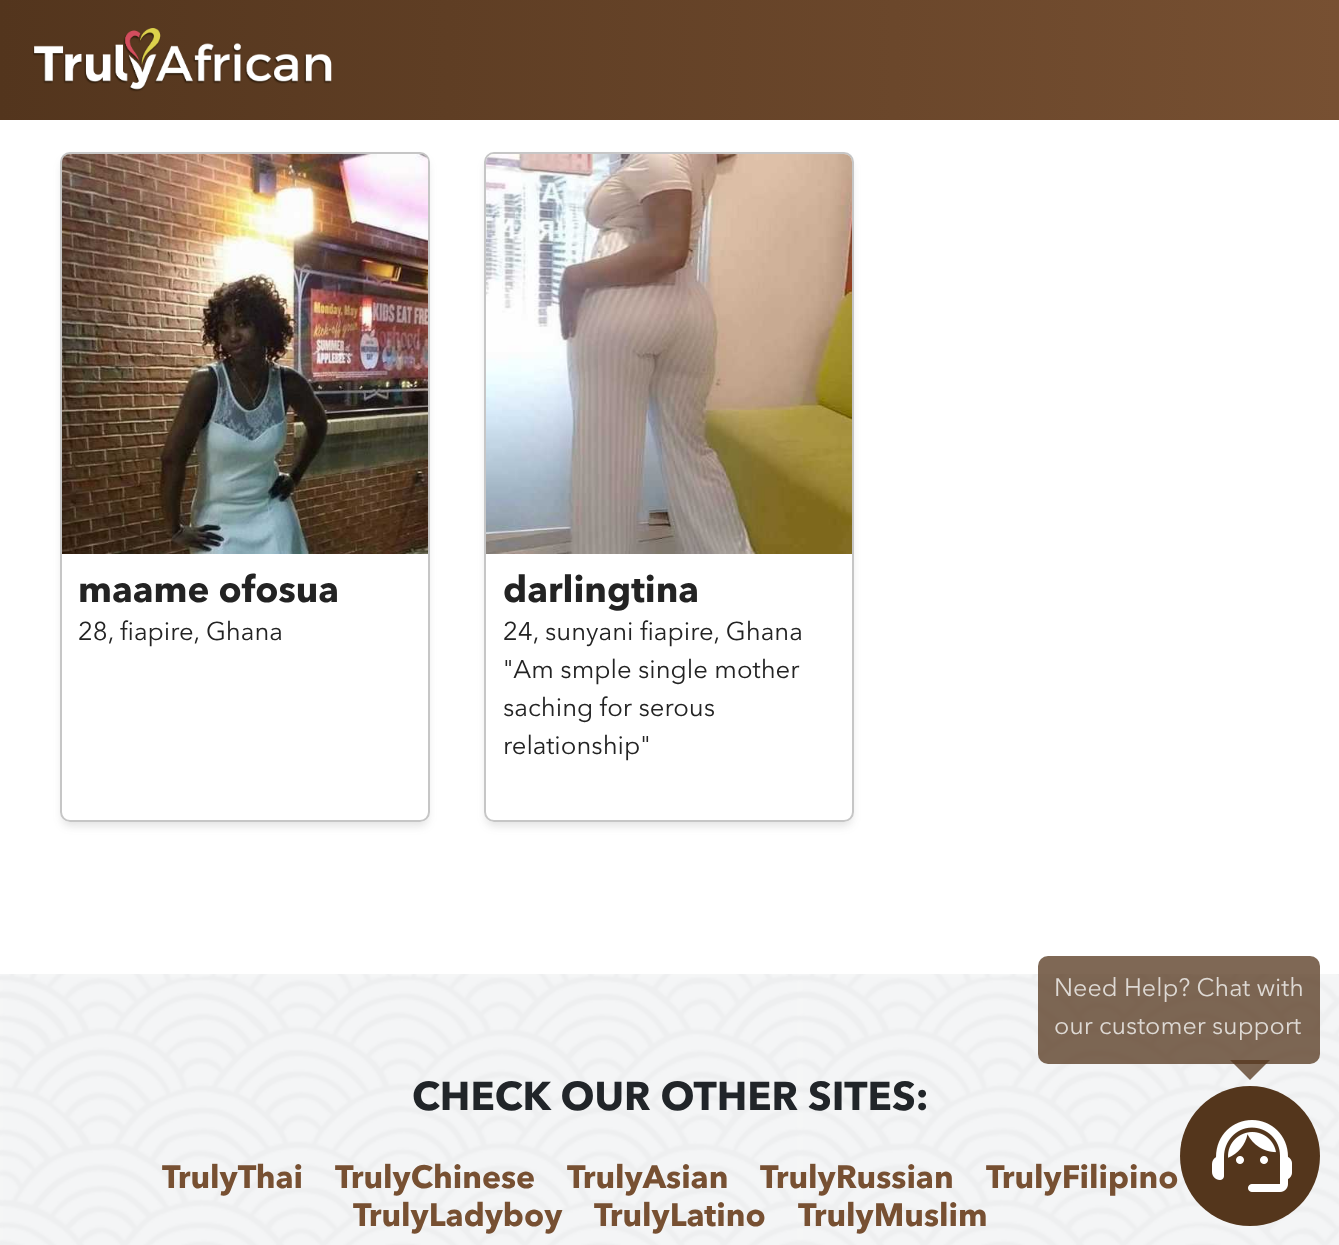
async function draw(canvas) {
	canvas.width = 1339;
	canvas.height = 1245;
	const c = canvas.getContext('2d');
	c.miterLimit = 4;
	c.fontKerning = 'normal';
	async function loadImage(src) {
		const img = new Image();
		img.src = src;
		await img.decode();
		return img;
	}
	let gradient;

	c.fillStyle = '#fff';
	c.fillRect(0, 0, 1339, 1245);
	gradient = c.createLinearGradient(0, 60, 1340, 60);
	gradient.addColorStop(0, '#53351d');
	gradient.addColorStop(1, '#775032');
	c.fillStyle = gradient;
	c.fillRect(0, 0, 1339, 120);
	c.drawImage(await loadImage('img1.png'), 33, 28, 299, 64);
	c.save();
	c.beginPath();
	c.moveTo(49, 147);
	c.lineTo(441, 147);
	c.lineTo(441, 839);
	c.lineTo(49, 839);
	c.closePath();
	c.moveTo(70, 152);
	c.lineTo(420, 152);
	c.bezierCurveTo(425.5, 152, 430, 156.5, 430, 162);
	c.lineTo(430, 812);
	c.bezierCurveTo(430, 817.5, 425.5, 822, 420, 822);
	c.lineTo(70, 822);
	c.bezierCurveTo(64.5, 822, 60, 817.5, 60, 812);
	c.lineTo(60, 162);
	c.bezierCurveTo(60, 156.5, 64.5, 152, 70, 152);
	c.closePath();
	c.clip('evenodd');
	c.fillStyle = '#5a5a5a2b';
	c.filter = 'blur(4px)';
	c.beginPath();
	c.roundRect(62, 160, 366, 666, 8);
	c.fill();
	c.filter = 'none';
	c.restore();
	c.beginPath();
	c.roundRect(61, 153, 368, 668, 9);
	c.strokeStyle = '#c6c6c6';
	c.lineWidth = 2;
	c.stroke();
	c.drawImage(await loadImage('img2.png'), 62, 154, 366, 400);
	c.font = 'bold 36.75px Avenir Next';
	c.fillStyle = '#232323';
	c.fillText('maame ofosua', 78, 602);
	c.font = '25.6px Avenir Next';
	c.fillText('28, fiapire, Ghana', 78, 640);
	c.save();
	c.beginPath();
	c.moveTo(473, 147);
	c.lineTo(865, 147);
	c.lineTo(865, 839);
	c.lineTo(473, 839);
	c.closePath();
	c.moveTo(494, 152);
	c.lineTo(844, 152);
	c.bezierCurveTo(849.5, 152, 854, 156.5, 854, 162);
	c.lineTo(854, 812);
	c.bezierCurveTo(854, 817.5, 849.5, 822, 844, 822);
	c.lineTo(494, 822);
	c.bezierCurveTo(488.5, 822, 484, 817.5, 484, 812);
	c.lineTo(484, 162);
	c.bezierCurveTo(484, 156.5, 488.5, 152, 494, 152);
	c.closePath();
	c.clip('evenodd');
	c.fillStyle = '#5a5a5a2b';
	c.filter = 'blur(4px)';
	c.beginPath();
	c.roundRect(486, 160, 366, 666, 8);
	c.fill();
	c.filter = 'none';
	c.restore();
	c.beginPath();
	c.roundRect(485, 153, 368, 668, 9);
	c.stroke();
	c.drawImage(await loadImage('img3.png'), 486, 154, 366, 400);
	c.font = 'bold 36.75px Avenir Next';
	c.fillText('darlingtina', 503, 602);
	c.font = '25.6px Avenir Next';
	for (const [text, x, y] of [
		['24, sunyani fiapire, Ghana', 503, 640],
		['"Am smple single mother', 503, 678],
		['saching for serous', 503, 716],
		['relationship"', 503, 754],
	]) {
		c.fillText(text, x, y);
	}
	c.drawImage(await loadImage('img5.png'), 0, 974, 1339, 271);
	c.fillStyle = '#54361cbf';
	c.beginPath();
	c.roundRect(1038, 956, 282, 108, 10);
	c.fill();
	c.font = '25px Avenir Next';
	c.fillStyle = '#ded9d4';
	c.fillText('Need Help? Chat with', 1054, 996);
	c.fillText('our customer support', 1054, 1034);
	c.fillStyle = '#54361cbf';
	c.beginPath();
	c.moveTo(1230, 1060);
	c.lineTo(1270, 1060);
	c.lineTo(1250, 1080);
	c.closePath();
	c.fill();
	c.fillStyle = '#54361c';
	c.beginPath();
	c.arc(1250, 1156, 70, 0, 2 * Math.PI);
	c.fill();
	c.drawImage(await loadImage('img4.png'), 1212, 1120, 80, 72);
	c.font = 'bold 40px Avenir Next';
	c.fillStyle = '#212529';
	c.fillText('CHECK OUR OTHER SITES:', 412, 1110);
	c.font = 'bold 32px Avenir Next';
	c.fillStyle = '#775032';
	for (const [text, x, y] of [
		['TrulyThai', 162, 1188],
		['TrulyChinese', 335, 1188],
		['TrulyAsian', 567, 1188],
		['TrulyRussian', 760, 1188],
		['TrulyFilipino', 986, 1188],
		['TrulyLadyboy', 353, 1226],
		['TrulyLatino', 594, 1226],
		['TrulyMuslim', 798, 1226],
	]) {
		c.fillText(text, x, y);
	}
}

draw(document.querySelector('canvas'));
